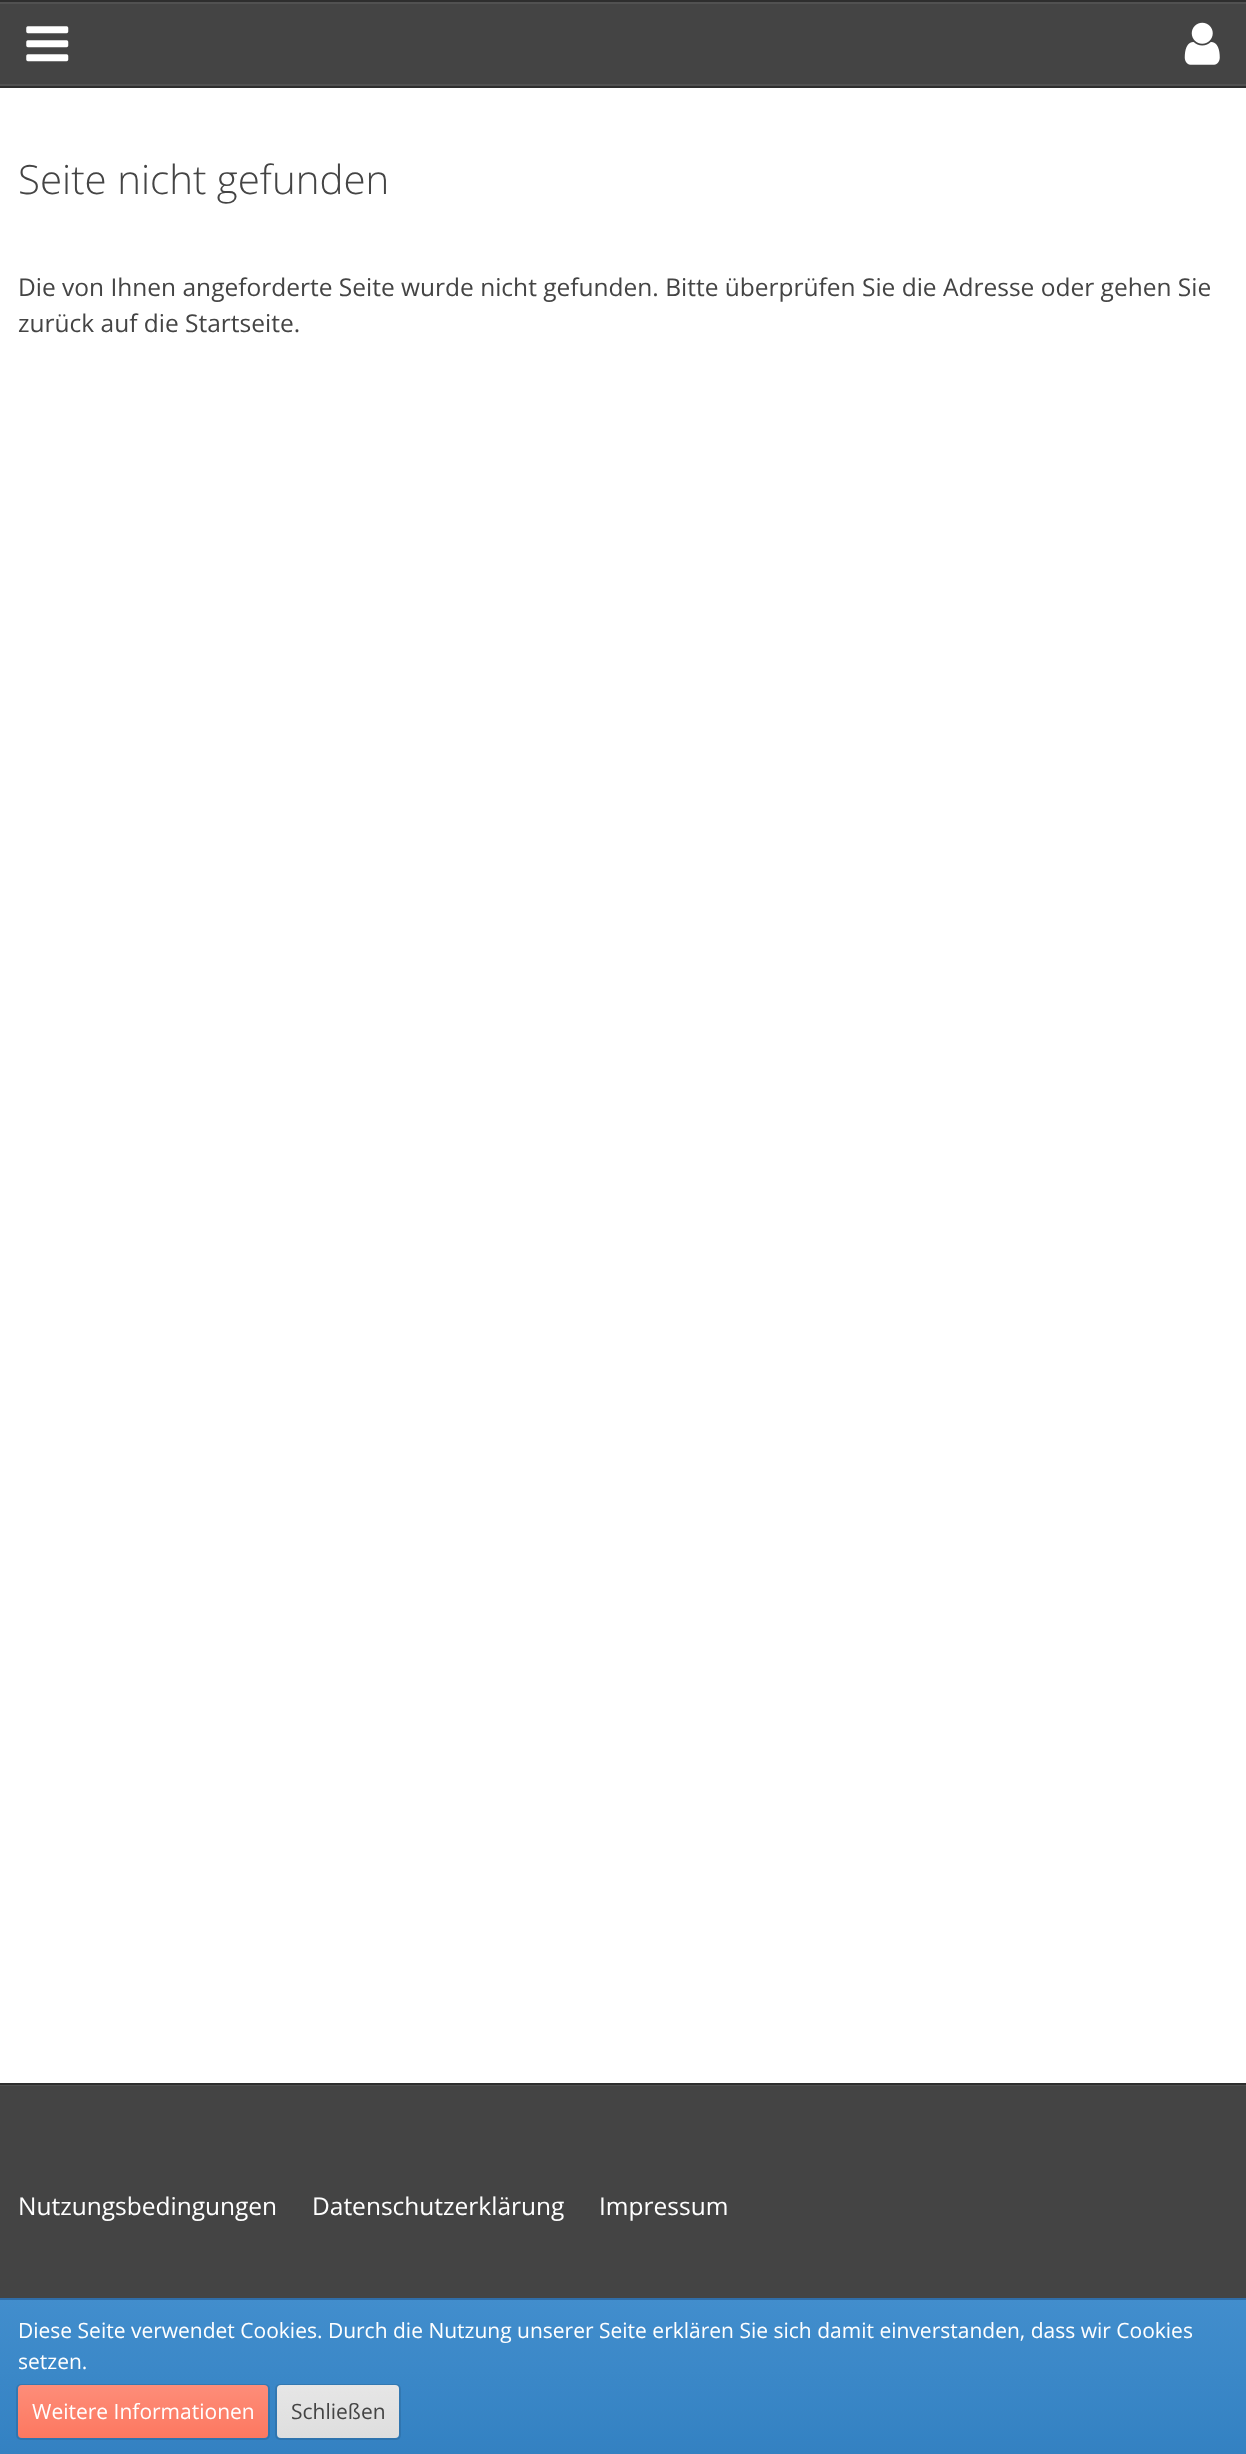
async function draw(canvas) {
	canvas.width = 1246;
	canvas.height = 2454;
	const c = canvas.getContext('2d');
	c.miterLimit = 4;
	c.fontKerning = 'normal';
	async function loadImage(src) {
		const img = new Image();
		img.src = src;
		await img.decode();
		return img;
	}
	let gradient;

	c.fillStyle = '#fff';
	c.fillRect(0, 0, 1246, 2454);
	for (const [x, y, w, h, color] of [
		[0, 4, 1246, 80, '#444'],
		[0, 84, 1246, 2, '#515151'],
		[0, 2, 1246, 2, '#515151'],
		[0, 86, 1246, 2, '#2e2e2e'],
		[0, 0, 1246, 2, '#2e2e2e'],
	]) {
		c.fillStyle = color;
		c.fillRect(x, y, w, h);
	}
	c.drawImage(await loadImage('img1.png'), 1184, 22, 36, 43);
	c.drawImage(await loadImage('img2.png'), 26, 26, 43, 36);
	c.font = '300 40.25px Open Sans';
	c.fillStyle = '#444';
	c.fillText('Seite nicht gefunden', 18, 194);
	c.font = '24.5px Open Sans';
	c.fillText('Die von Ihnen angeforderte Seite wurde nicht gefunden. Bitte überprüfen Sie die Adresse oder gehen Sie', 18, 296);
	c.fillText('zurück auf die Startseite.', 18, 332);
	for (const [x, y, w, h, color] of [
		[0, 2086, 1246, 212, '#444'],
		[0, 2085, 1246, 1, '#515151'],
		[0, 2083, 1246, 2, '#2e2e2e'],
	]) {
		c.fillStyle = color;
		c.fillRect(x, y, w, h);
	}
	c.fillStyle = '#fff';
	for (const [text, x, y] of [
		['Nutzungsbedingungen', 18, 2215],
		['Datenschutzerklärung', 312, 2215],
		['Impressum', 599, 2215],
	]) {
		c.fillText(text, x, y);
	}
	gradient = c.createLinearGradient(623, 2298, 623, 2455);
	gradient.addColorStop(0, '#428ecd');
	gradient.addColorStop(1, '#3381c2');
	c.fillStyle = gradient;
	c.fillRect(0, 2300, 1246, 154);
	c.fillStyle = '#306ea9';
	c.fillRect(0, 2298, 1246, 2);
	c.font = '21px Open Sans';
	c.fillStyle = '#fff';
	c.fillText('Diese Seite verwendet Cookies. Durch die Nutzung unserer Seite erklären Sie sich damit einverstanden, dass wir Cookies', 18, 2338);
	c.fillText('setzen.', 18, 2369);
	c.beginPath();
	c.roundRect(17, 2385, 252, 54, 4);
	c.strokeStyle = '#0000001a';
	c.lineWidth = 2;
	c.stroke();
	gradient = c.createLinearGradient(143, 2385, 143, 2438);
	gradient.addColorStop(0, '#fd8d79');
	gradient.addColorStop(1, '#fd7860');
	c.fillStyle = gradient;
	c.beginPath();
	c.roundRect(18, 2385, 250, 53, 4);
	c.fill();
	c.fillStyle = '#fff';
	c.fillText('Weitere Informationen', 32, 2419);
	c.beginPath();
	c.roundRect(276, 2385, 124, 54, 4);
	c.stroke();
	gradient = c.createLinearGradient(338, 2385, 338, 2438);
	gradient.addColorStop(0, '#e6e6e6');
	gradient.addColorStop(1, '#dedede');
	c.fillStyle = gradient;
	c.beginPath();
	c.roundRect(277, 2385, 122, 53, 4);
	c.fill();
	c.fillStyle = '#444';
	c.fillText('Schließen', 291, 2419);
}

draw(document.querySelector('canvas'));
